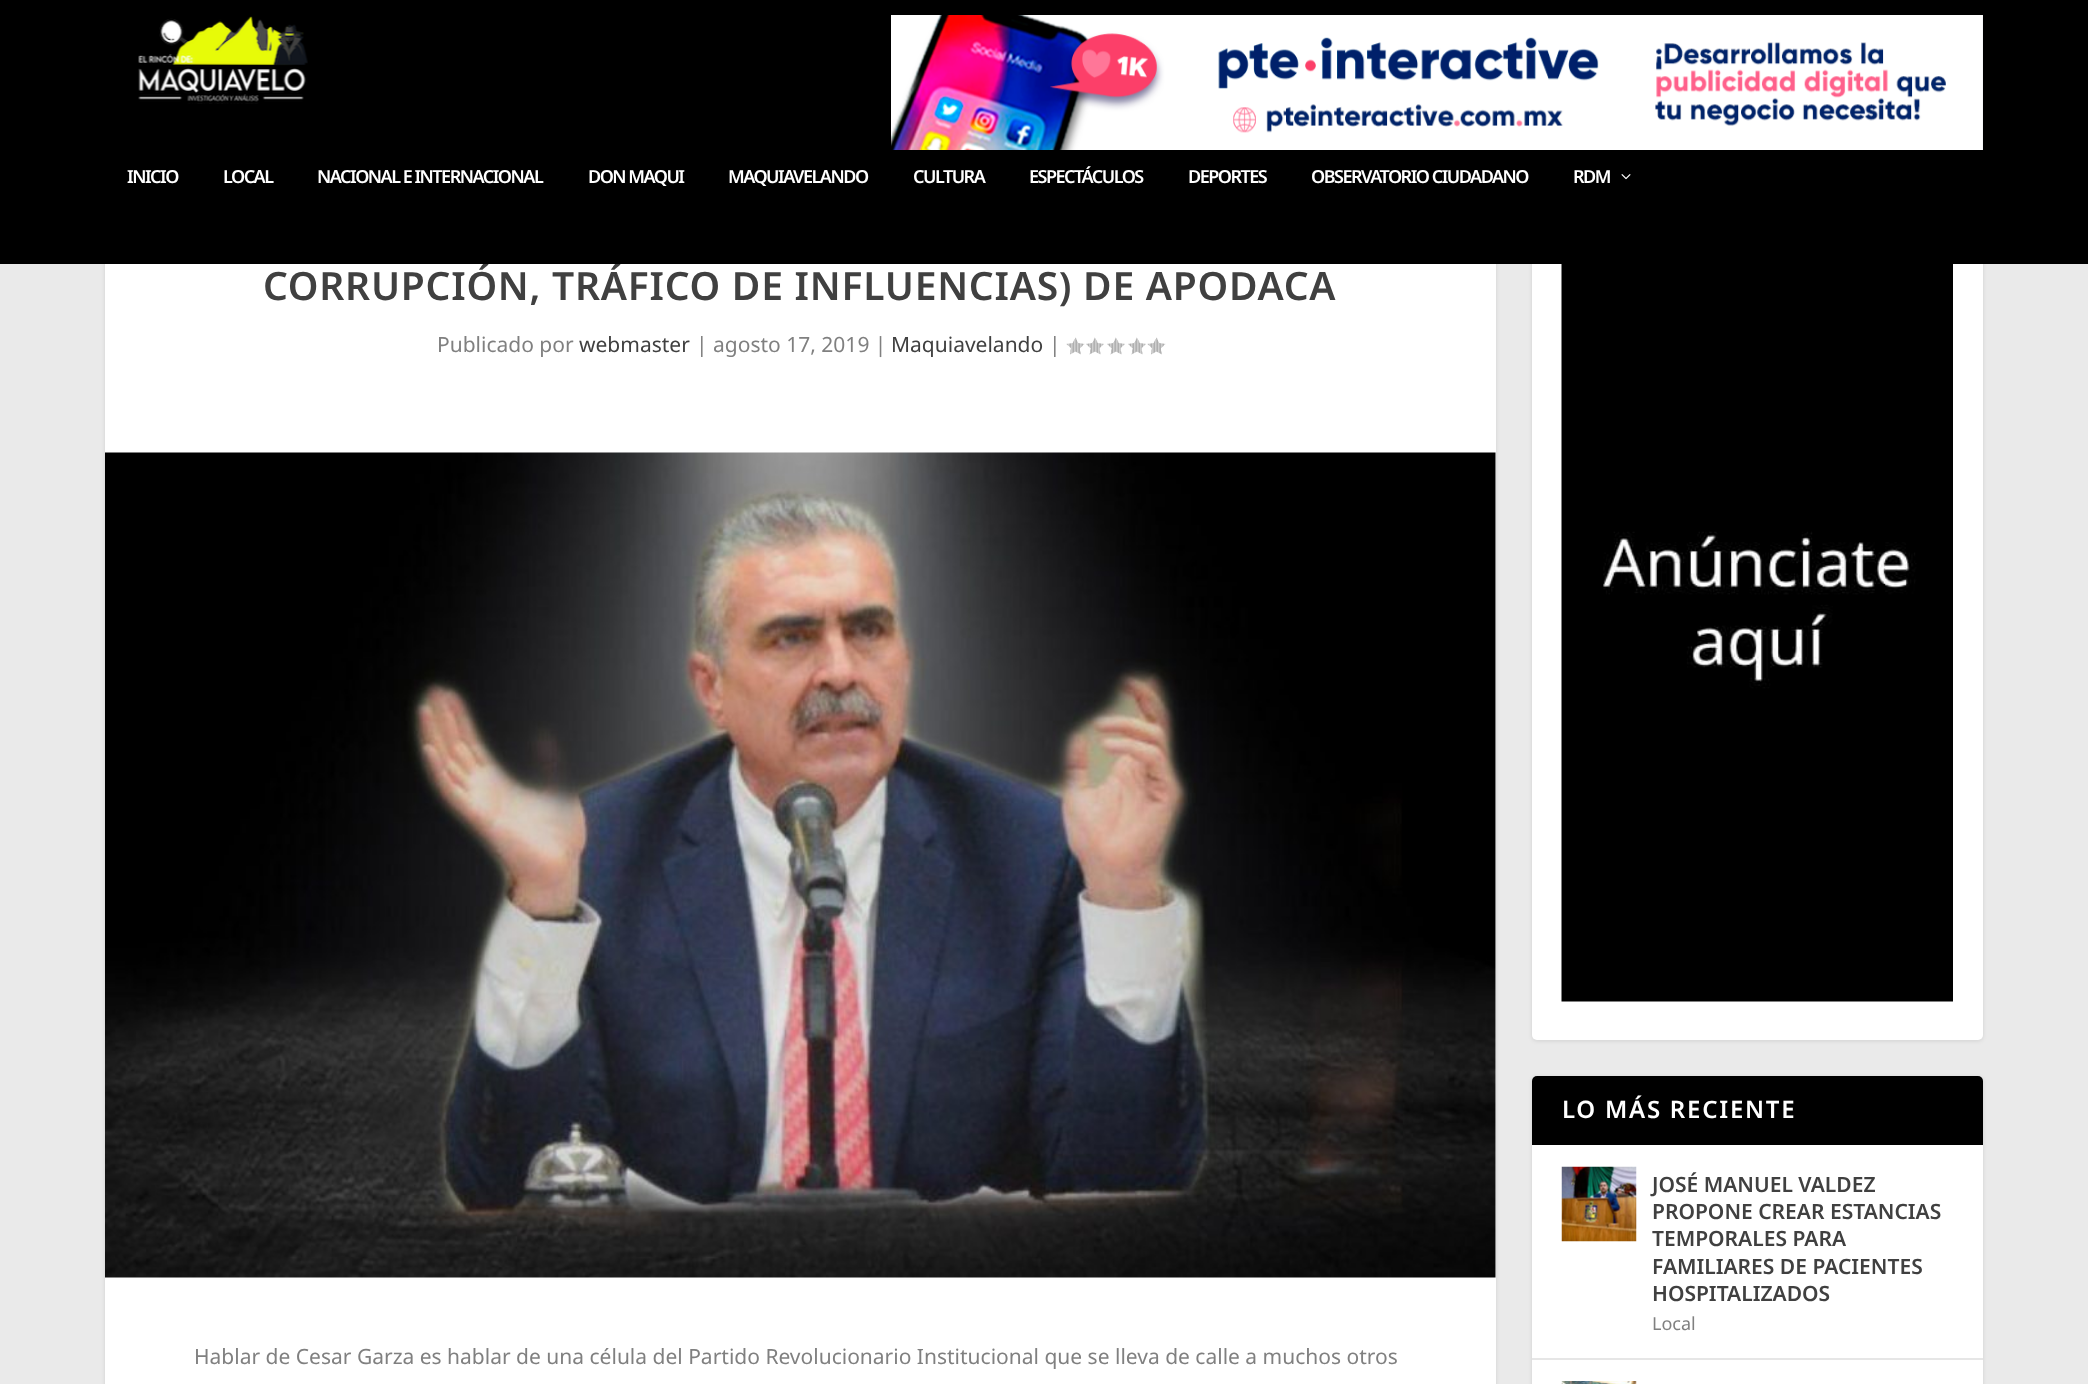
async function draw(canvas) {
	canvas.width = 2088;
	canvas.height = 1384;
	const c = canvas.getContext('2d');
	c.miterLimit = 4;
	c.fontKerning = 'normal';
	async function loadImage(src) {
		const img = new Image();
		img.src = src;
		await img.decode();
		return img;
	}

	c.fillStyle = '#eaeaea';
	c.fillRect(0, 0, 2088, 1384);
	c.fillStyle = '#0000001a';
	c.filter = 'blur(2px)';
	c.beginPath();
	c.roundRect(105, 122, 1391, 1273, 5);
	c.fill();
	c.filter = 'none';
	c.fillStyle = '#fff';
	c.fillRect(105, 264, 1391, 1120);
	c.letterSpacing = '0.75px';
	c.font = '600 39px Noto Sans';
	c.fillStyle = '#404040';
	c.fillText('CORRUPCIÓN, TRÁFICO DE INFLUENCIAS) DE APODACA', 263, 300);
	c.fillStyle = '#0000001a';
	c.filter = 'blur(2px)';
	c.beginPath();
	c.roundRect(1532, 122, 451, 919, 5);
	c.fill();
	c.filter = 'none';
	c.fillStyle = '#fff';
	c.beginPath();
	c.roundRect(1532, 120, 451, 920, 5);
	c.fill();
	c.fillStyle = '#000';
	c.fillRect(0, 0, 2088, 264);
	c.drawImage(await loadImage('img1.png'), 138, 16, 170, 88);
	c.drawImage(await loadImage('img2.png'), 891, 15, 1092, 135);
	c.letterSpacing = '-1.5px';
	c.font = '600 18px Noto Sans';
	c.fillStyle = '#fff';
	for (const [text, x, y] of [
		['INICIO', 127, 183],
		['LOCAL', 223, 183],
		['NACIONAL E INTERNACIONAL', 317, 183],
		['DON MAQUI', 588, 183],
		['MAQUIAVELANDO', 728, 183],
		['CULTURA', 913, 183],
		['ESPECTÁCULOS', 1029, 183],
		['DEPORTES', 1188, 183],
		['OBSERVATORIO CIUDADANO', 1311, 183],
		['RDM', 1573, 183],
	]) {
		c.fillText(text, x, y);
	}
	c.drawImage(await loadImage('img3.png'), 1621, 174, 10, 6);
	c.letterSpacing = '0px';
	c.font = '21px Noto Sans';
	c.fillStyle = '#808080';
	c.fillText('Publicado por', 437, 352);
	c.fillStyle = '#404040';
	c.fillText('webmaster', 579, 352);
	c.fillStyle = '#808080';
	c.fillText('| agosto 17, 2019 |', 696, 352);
	c.fillStyle = '#404040';
	c.fillText('Maquiavelando', 891, 352);
	c.fillStyle = '#808080';
	c.fillText('|', 1049, 352);
	c.drawImage(await loadImage('img4.png'), 1066, 337, 19, 18);
	c.drawImage(await loadImage('img5.png'), 1086, 337, 18, 18);
	c.drawImage(await loadImage('img5.png'), 1107, 337, 18, 18);
	c.drawImage(await loadImage('img5.png'), 1128, 337, 18, 18);
	c.drawImage(await loadImage('img4.png'), 1147, 337, 19, 18);
	c.drawImage(await loadImage('img6.png'), 105, 452, 1391, 826);
	c.fillText('Hablar de Cesar Garza es hablar de una célula del Partido Revolucionario Institucional que se lleva de calle a muchos otros', 194, 1364);
	c.drawImage(await loadImage('img7.png'), 1561, 264, 392, 738);
	c.fillStyle = '#0000001a';
	c.filter = 'blur(2px)';
	c.beginPath();
	c.roundRect(1532, 1077, 451, 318, 5);
	c.fill();
	c.filter = 'none';
	c.fillStyle = '#fff';
	c.beginPath();
	c.roundRect(1532, 1076, 451, 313, 5);
	c.fill();
	c.fillStyle = '#000';
	c.beginPath();
	c.roundRect(1532, 1076, 451, 69, [5, 5, 0, 0]);
	c.fill();
	c.letterSpacing = '1.75px';
	c.font = '600 24px Noto Sans';
	c.fillStyle = '#fff';
	c.fillText('LO MÁS RECIENTE', 1562, 1118);
	c.fillStyle = '#e6e6e6';
	c.fillRect(1532, 1358, 451, 2);
	c.drawImage(await loadImage('img8.png'), 1561, 1166, 76, 76);
	c.letterSpacing = '0px';
	c.font = '600 21px Noto Sans';
	c.fillStyle = '#404040';
	for (const [text, x, y] of [
		['JOSÉ MANUEL VALDEZ', 1652, 1192],
		['PROPONE CREAR ESTANCIAS', 1652, 1219],
		['TEMPORALES PARA', 1652, 1246],
		['FAMILIARES DE PACIENTES', 1652, 1274],
		['HOSPITALIZADOS', 1652, 1301],
	]) {
		c.fillText(text, x, y);
	}
	c.font = '18px Noto Sans';
	c.fillStyle = '#808080';
	c.fillText('Local', 1652, 1330);
	c.drawImage(await loadImage('img9.png'), 1561, 1381, 76, 3);
}

draw(document.querySelector('canvas'));
